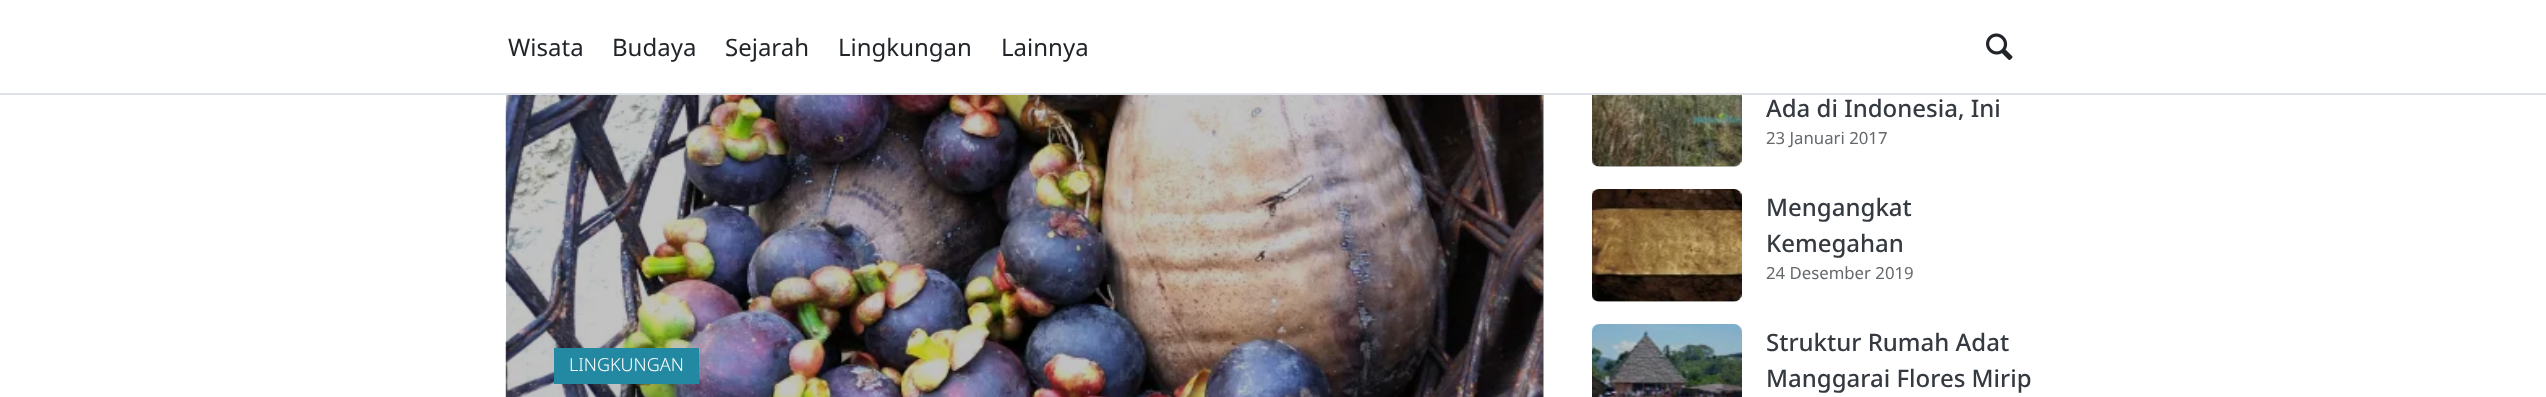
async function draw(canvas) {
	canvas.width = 2546;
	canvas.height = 397;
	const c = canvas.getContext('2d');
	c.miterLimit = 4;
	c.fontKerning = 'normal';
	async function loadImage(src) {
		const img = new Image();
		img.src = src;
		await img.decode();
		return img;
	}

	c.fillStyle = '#fff';
	c.fillRect(0, 0, 2546, 397);
	c.fillStyle = '#c2c2c2';
	c.fillRect(1543, 95, 1, 302);
	c.drawImage(await loadImage('img3.png'), 1592, 95, 150, 72);
	c.fillStyle = '#00000033';
	c.beginPath();
	c.roundRect(1592, 54, 150, 113, 8);
	c.fill();
	c.fillStyle = '#fff';
	c.fillRect(1592, 54, 150, 39);
	c.fillStyle = '#dee2e6';
	c.fillRect(0, 93, 2546, 2);
	c.font = '24px Noto Sans';
	c.fillStyle = '#212529';
	for (const [text, x, y] of [
		['Wisata', 508, 56],
		['Budaya', 612, 56],
		['Sejarah', 725, 56],
		['Lingkungan', 838, 56],
		['Lainnya', 1001, 56],
	]) {
		c.fillText(text, x, y);
	}
	c.drawImage(await loadImage('img1.png'), 1986, 33, 27, 27);
	c.drawImage(await loadImage('img2.png'), 505, 95, 1039, 302);
	c.fillStyle = '#2388a1';
	c.fillRect(554, 348, 145, 36);
	c.font = '300 18px Noto Sans';
	c.fillStyle = '#fff';
	c.fillText('LINGKUNGAN', 569, 371);
	c.font = '500 24px Noto Sans';
	c.fillStyle = '#343a40';
	c.fillText('Ada di Indonesia, Ini', 1766, 117);
	c.font = '16.75px Noto Sans';
	c.fillStyle = '#65696c';
	c.fillText('23 Januari 2017', 1766, 144);
	c.drawImage(await loadImage('img4.png'), 1592, 189, 150, 113);
	c.fillStyle = '#00000033';
	c.beginPath();
	c.roundRect(1592, 189, 150, 113, 8);
	c.fill();
	c.font = '500 24px Noto Sans';
	c.fillStyle = '#343a40';
	c.fillText('Mengangkat', 1766, 216);
	c.fillText('Kemegahan', 1766, 252);
	c.font = '16.75px Noto Sans';
	c.fillStyle = '#65696c';
	c.fillText('24 Desember 2019', 1766, 279);
	c.drawImage(await loadImage('img5.png'), 1592, 324, 150, 73);
	c.fillStyle = '#00000033';
	c.beginPath();
	c.roundRect(1592, 324, 150, 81, 8);
	c.fill();
	c.font = '500 24px Noto Sans';
	c.fillStyle = '#343a40';
	c.fillText('Struktur Rumah Adat', 1766, 351);
	c.fillText('Manggarai Flores Mirip', 1766, 387);
}

draw(document.querySelector('canvas'));
